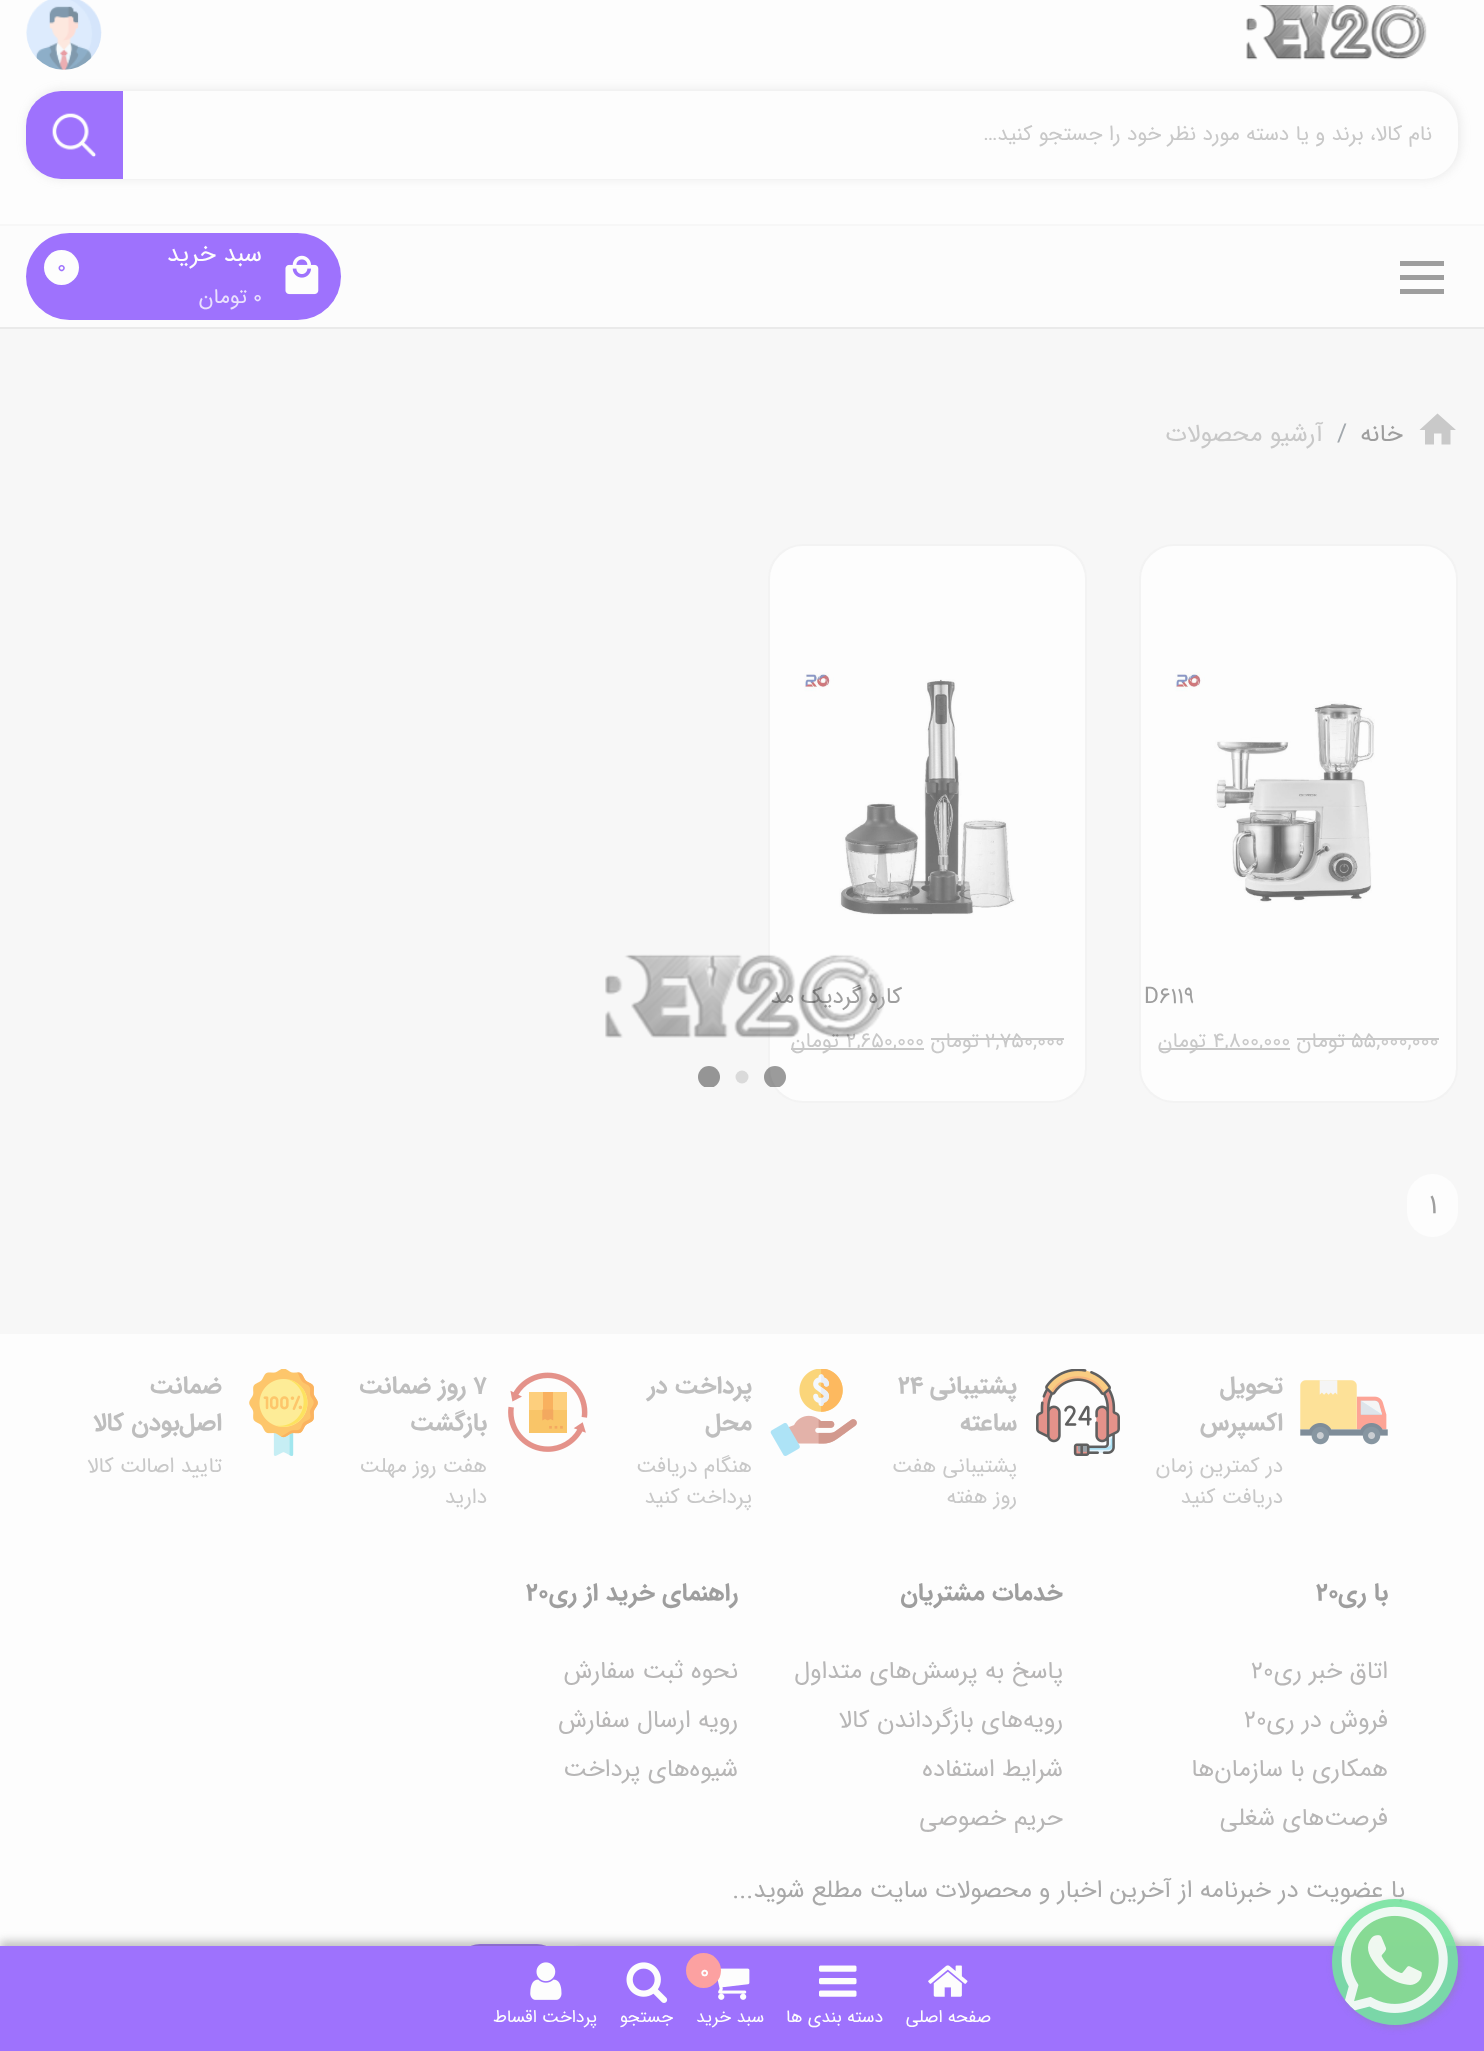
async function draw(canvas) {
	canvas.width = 1484;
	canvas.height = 2051;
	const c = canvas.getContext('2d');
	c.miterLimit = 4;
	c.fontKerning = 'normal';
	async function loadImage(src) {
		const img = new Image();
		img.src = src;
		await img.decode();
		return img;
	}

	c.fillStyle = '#f7f7f7';
	c.fillRect(0, 0, 1484, 2051);
	c.fillStyle = '#fdfdfd';
	c.fillRect(0, 0, 1484, 224);
	c.drawImage(await loadImage('img1.png'), 26, 0, 76, 70);
	c.drawImage(await loadImage('img2.png'), 1246, 5, 181, 55);
	c.save();
	c.beginPath();
	c.moveTo(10, 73);
	c.lineTo(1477, 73);
	c.lineTo(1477, 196);
	c.lineTo(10, 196);
	c.closePath();
	c.moveTo(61, 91);
	c.lineTo(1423, 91);
	c.bezierCurveTo(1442.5, 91, 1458, 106.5, 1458, 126);
	c.lineTo(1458, 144);
	c.bezierCurveTo(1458, 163.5, 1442.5, 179, 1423, 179);
	c.lineTo(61, 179);
	c.bezierCurveTo(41.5, 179, 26, 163.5, 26, 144);
	c.lineTo(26, 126);
	c.bezierCurveTo(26, 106.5, 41.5, 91, 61, 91);
	c.closePath();
	c.clip('evenodd');
	c.fillStyle = '#8c8c8c26';
	c.filter = 'blur(5px)';
	c.beginPath();
	c.roundRect(26, 89, 1435, 91, 37);
	c.fill();
	c.filter = 'none';
	c.restore();
	c.direction = 'rtl';
	c.font = '21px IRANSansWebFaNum';
	c.fillStyle = '#c8c8c8';
	c.fillText('نام کالا، برند و یا دسته مورد نظر خود را جستجو کنید…', 1432, 140);
	c.fillStyle = '#9e72fd';
	c.beginPath();
	c.roundRect(26, 91, 97, 88, [35, 0, 0, 35]);
	c.fill();
	c.drawImage(await loadImage('img3.png'), 52, 113, 45, 45);
	for (const [x, y, w, h, color] of [
		[0, 226, 1484, 101, '#fcfcfc'],
		[1400, 261, 44, 5, '#9e9e9e'],
		[1400, 275, 44, 5, '#9e9e9e'],
		[1400, 289, 44, 5, '#9e9e9e'],
		[0, 327, 1484, 2, '#eaeaea'],
	]) {
		c.fillStyle = color;
		c.fillRect(x, y, w, h);
	}
	c.fillStyle = '#9e72fd';
	c.beginPath();
	c.roundRect(26, 233, 315, 87, 43.5);
	c.fill();
	c.drawImage(await loadImage('img4.png'), 285, 255, 34, 40);
	c.font = '24.5px IRANSansWebFaNum';
	c.fillStyle = '#fdfdfd';
	c.fillText('سبد خرید', 262, 261);
	c.beginPath();
	c.arc(61.5, 267.5, 17.5, 0, 2 * Math.PI);
	c.fill();
	c.direction = 'ltr';
	c.font = '21px IRANSansWebFaNum';
	c.fillStyle = '#9e72fd';
	c.fillText('0', 57, 273);
	c.fillStyle = '#eae1fd';
	c.fillText('0', 253, 303);
	c.direction = 'rtl';
	c.fillText('تومان', 247, 303);
	c.fillStyle = '#fdfdfd';
	c.fillRect(0, 1334, 1484, 612);
	c.fillStyle = '#f7f7f7';
	c.beginPath();
	c.roundRect(560, 1944, 845, 67, 23);
	c.fill();
	c.fillStyle = '#9e72fd';
	c.beginPath();
	c.roundRect(457, 1944, 103, 63, 23);
	c.fill();
	c.fillStyle = '#5f5f5f5e';
	c.filter = 'blur(4.5px)';
	c.beginPath();
	c.rect(0, 1941, 1484, 105);
	c.fill();
	c.filter = 'none';
	c.fillStyle = '#9e72fd';
	c.fillRect(0, 1946, 1484, 105);
	c.save();
	c.beginPath();
	c.moveTo(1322, 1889);
	c.lineTo(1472, 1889);
	c.lineTo(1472, 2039);
	c.lineTo(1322, 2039);
	c.closePath();
	c.moveTo(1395, 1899);
	c.bezierCurveTo(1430, 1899, 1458, 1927, 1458, 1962);
	c.bezierCurveTo(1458, 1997, 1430, 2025, 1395, 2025);
	c.bezierCurveTo(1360, 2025, 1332, 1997, 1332, 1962);
	c.bezierCurveTo(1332, 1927, 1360, 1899, 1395, 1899);
	c.closePath();
	c.clip('evenodd');
	c.fillStyle = '#8484845c';
	c.filter = 'blur(3.5px)';
	c.beginPath();
	c.roundRect(1334, 1901, 126, 126, 63);
	c.fill();
	c.filter = 'none';
	c.restore();
	c.font = '24.5px IRANSansWebFaNum';
	c.fillStyle = '#a9a9a9';
	c.fillText('با عضویت در خبرنامه از آخرین اخبار و', 1405, 1897);
	c.fillStyle = '#76e29ee6';
	c.beginPath();
	c.arc(1395, 1962, 63, 0, 2 * Math.PI);
	c.fill();
	c.drawImage(await loadImage('img5.png'), 1341, 1906, 107, 107);
	c.drawImage(await loadImage('img6.png'), 928, 1965, 40, 32);
	c.font = '17.5px IRANSansWebFaNum';
	c.fillStyle = '#fdfdfd';
	c.fillText('صفحه اصلی', 991, 2022);
	c.drawImage(await loadImage('img7.png'), 819, 1965, 38, 32);
	c.fillText('دسته بندی ها', 883, 2022);
	c.drawImage(await loadImage('img8.png'), 717, 1968, 33, 32);
	c.fillStyle = '#fca1a1';
	c.beginPath();
	c.arc(703.5, 1970.5, 17.5, 0, 2 * Math.PI);
	c.fill();
	c.direction = 'ltr';
	c.font = '500 21px IRANSansWebFaNum';
	c.fillStyle = '#fdfdfd';
	c.fillText('0', 700, 1978);
	c.direction = 'rtl';
	c.font = '17.5px IRANSansWebFaNum';
	c.fillText('سبد خرید', 764, 2022);
	c.drawImage(await loadImage('img9.png'), 626, 1962, 42, 41);
	c.fillText('جستجو', 673, 2022);
	c.drawImage(await loadImage('img10.png'), 530, 1962, 32, 38);
	c.fillText('پرداخت اقساط', 597, 2022);
	c.fillStyle = '#c9c9c9';
	c.beginPath();
	c.moveTo(1434, 444.5);
	c.lineTo(1434, 433.5);
	c.lineTo(1441.5, 433.5);
	c.lineTo(1441.5, 444.5);
	c.lineTo(1450.5, 444.5);
	c.lineTo(1450.5, 430);
	c.lineTo(1456, 430);
	c.lineTo(1437.5, 413.5);
	c.lineTo(1419.5, 430);
	c.lineTo(1425, 430);
	c.lineTo(1425, 444.5);
	c.closePath();
	c.fill();
	c.font = '24.5px IRANSansWebFaNum';
	c.fillStyle = '#9e9e9e';
	c.fillText('خانه', 1403, 441);
	c.direction = 'ltr';
	c.fillStyle = '#a2a8ad';
	c.fillText('/', 1337, 441);
	c.direction = 'rtl';
	c.fillStyle = '#c8c8c8';
	c.fillText('آرشیو محصولات', 1323, 441);
	c.fillStyle = '#fdfdfd';
	c.beginPath();
	c.roundRect(1140, 545, 317, 557, 34);
	c.fill();
	c.strokeStyle = '#f3f3f3';
	c.lineWidth = 2;
	c.stroke();
	c.drawImage(await loadImage('img11.png'), 1175, 672, 200, 231);
	c.direction = 'ltr';
	c.font = '22.75px IRANSansWebFaNum';
	c.fillStyle = '#9e9e9e';
	c.fillText('D6119', 1144, 1003);
	c.font = '21px IRANSansWebFaNum';
	c.fillStyle = '#c8c8c8';
	c.fillText('55,000,000', 1351, 1047);
	c.fillRect(1297, 1038, 54, 2);
	c.fillRect(1351, 1038, 88, 2);
	c.direction = 'rtl';
	c.fillText('تومان', 1345, 1047);
	c.fillRect(1159, 1048, 131, 2);
	c.direction = 'ltr';
	c.fillText('4,800,000', 1213, 1047);
	c.direction = 'rtl';
	c.fillText('تومان', 1206, 1047);
	c.fillStyle = '#fdfdfd';
	c.beginPath();
	c.roundRect(769, 545, 317, 557, 34);
	c.fill();
	c.stroke();
	c.drawImage(await loadImage('img12.png'), 804, 672, 212, 243);
	c.save();
	c.beginPath();
	c.rect(770, 975, 315, 42);
	c.clip();
	c.font = '22.75px IRANSansWebFaNum';
	c.fillStyle = '#9e9e9e';
	c.fillText('کاره گردیک مدل', 902, 1003);
	c.restore();
	c.direction = 'ltr';
	c.fillStyle = '#c8c8c8';
	c.fillText('2,750,000', 985, 1047);
	c.fillRect(931, 1038, 54, 2);
	c.fillRect(985, 1038, 79, 2);
	c.direction = 'rtl';
	c.fillText('تومان', 979, 1047);
	c.fillRect(791, 1048, 133, 2);
	c.direction = 'ltr';
	c.fillText('2,650,000', 846, 1047);
	c.direction = 'rtl';
	c.fillText('تومان', 839, 1047);
	c.fillStyle = '#fdfdfd';
	c.beginPath();
	c.roundRect(1407, 1174, 51, 63, 25.5);
	c.fill();
	c.direction = 'ltr';
	c.font = '28px IRANSansWebFaNum';
	c.fillStyle = '#9e9e9e';
	c.fillText('1', 1429, 1213);
	c.drawImage(await loadImage('img13.png'), 605, 954, 279, 84);
	c.save();
	c.beginPath();
	c.rect(698, 1066, 88, 21);
	c.clip();
	c.fillStyle = '#00000063';
	c.beginPath();
	c.arc(775, 1077, 11, 0, 2 * Math.PI);
	c.fill();
	c.restore();
	c.fillStyle = '#dadada';
	c.beginPath();
	c.arc(742, 1077, 6.5, 0, 2 * Math.PI);
	c.fill();
	c.save();
	c.beginPath();
	c.rect(698, 1066, 88, 21);
	c.clip();
	c.fillStyle = '#959595';
	c.beginPath();
	c.arc(709, 1077, 11, 0, 2 * Math.PI);
	c.fill();
	c.restore();
	c.drawImage(await loadImage('img14.png'), 1300, 1380, 88, 65);
	c.direction = 'rtl';
	c.font = 'bold 24.5px IRANSansWebFaNum';
	c.fillStyle = '#bebebe';
	c.fillText('تحویل', 1283, 1393);
	c.fillText('اکسپرس', 1283, 1430);
	c.font = '21px IRANSansWebFaNum';
	c.fillStyle = '#c8c8c8';
	c.fillText('در کمترین زمان', 1283, 1472);
	c.fillText('دریافت کنید', 1283, 1503);
	c.drawImage(await loadImage('img15.png'), 1036, 1369, 84, 87);
	c.font = 'bold 24.5px IRANSansWebFaNum';
	c.fillStyle = '#bebebe';
	c.fillText('پشتیبانی', 1017, 1393);
	c.direction = 'ltr';
	c.fillText('۲۴', 898, 1393);
	c.direction = 'rtl';
	c.fillText('ساعته', 1017, 1430);
	c.font = '21px IRANSansWebFaNum';
	c.fillStyle = '#c8c8c8';
	c.fillText('پشتیبانی هفت', 1017, 1472);
	c.fillText('روز هفته', 1017, 1503);
	c.drawImage(await loadImage('img16.png'), 770, 1369, 87, 87);
	c.font = 'bold 24.5px IRANSansWebFaNum';
	c.fillStyle = '#bebebe';
	c.fillText('پرداخت در', 752, 1393);
	c.fillText('محل', 752, 1430);
	c.font = '21px IRANSansWebFaNum';
	c.fillStyle = '#c8c8c8';
	c.fillText('هنگام دریافت', 752, 1472);
	c.fillText('پرداخت کنید', 752, 1503);
	c.drawImage(await loadImage('img17.png'), 508, 1372, 80, 80);
	c.direction = 'ltr';
	c.font = 'bold 24.5px IRANSansWebFaNum';
	c.fillStyle = '#bebebe';
	c.fillText('۷', 473, 1393);
	c.direction = 'rtl';
	c.fillText('روز ضمانت', 466, 1393);
	c.fillText('بازگشت', 487, 1430);
	c.font = '21px IRANSansWebFaNum';
	c.fillStyle = '#c8c8c8';
	c.fillText('هفت روز مهلت', 487, 1472);
	c.fillText('دارید', 487, 1503);
	c.drawImage(await loadImage('img18.png'), 249, 1369, 69, 87);
	c.font = 'bold 24.5px IRANSansWebFaNum';
	c.fillStyle = '#bebebe';
	c.fillText('ضمانت', 222, 1393);
	c.fillText('اصل‌بودن کالا', 222, 1430);
	c.font = '21px IRANSansWebFaNum';
	c.fillStyle = '#c8c8c8';
	c.fillText('تایید اصالت کالا', 222, 1472);
	c.font = 'bold 24.5px IRANSansWebFaNum';
	c.fillStyle = '#9e9e9e';
	c.fillText('با ری', 1388, 1600);
	c.direction = 'ltr';
	c.fillText('20', 1316, 1600);
	c.direction = 'rtl';
	c.font = '24.5px IRANSansWebFaNum';
	c.fillStyle = '#b7b6b6';
	c.fillText('اتاق خبر ری', 1388, 1678);
	c.direction = 'ltr';
	c.fillText('20', 1251, 1678);
	c.direction = 'rtl';
	c.fillText('فروش در ری', 1388, 1727);
	c.direction = 'ltr';
	c.fillText('20', 1244, 1727);
	c.direction = 'rtl';
	c.fillText('همکاری با سازمان‌ها', 1388, 1776);
	c.fillText('فرصت‌های شغلی', 1388, 1825);
	c.font = 'bold 24.5px IRANSansWebFaNum';
	c.fillStyle = '#9e9e9e';
	c.fillText('خدمات مشتریان', 1063, 1600);
	c.font = '24.5px IRANSansWebFaNum';
	c.fillStyle = '#b7b6b6';
	for (const [text, x, y] of [
		['پاسخ به پرسش‌های متداول', 1063, 1678],
		['رویه‌های بازگرداندن کالا', 1063, 1727],
		['شرایط استفاده', 1063, 1776],
		['حریم خصوصی', 1063, 1825],
	]) {
		c.fillText(text, x, y);
	}
	c.font = 'bold 24.5px IRANSansWebFaNum';
	c.fillStyle = '#9e9e9e';
	c.fillText('راهنمای خرید از ری', 738, 1600);
	c.direction = 'ltr';
	c.fillText('20', 526, 1600);
	c.direction = 'rtl';
	c.font = '24.5px IRANSansWebFaNum';
	c.fillStyle = '#b7b6b6';
	for (const [text, x, y] of [
		['نحوه ثبت سفارش', 738, 1678],
		['رویه ارسال سفارش', 738, 1727],
		['شیوه‌های پرداخت', 738, 1776],
	]) {
		c.fillText(text, x, y);
	}
	c.fillStyle = '#a9a9a9';
	c.fillText('محصولات سایت مطلع شوید...', 1032, 1897);
}

draw(document.querySelector('canvas'));
